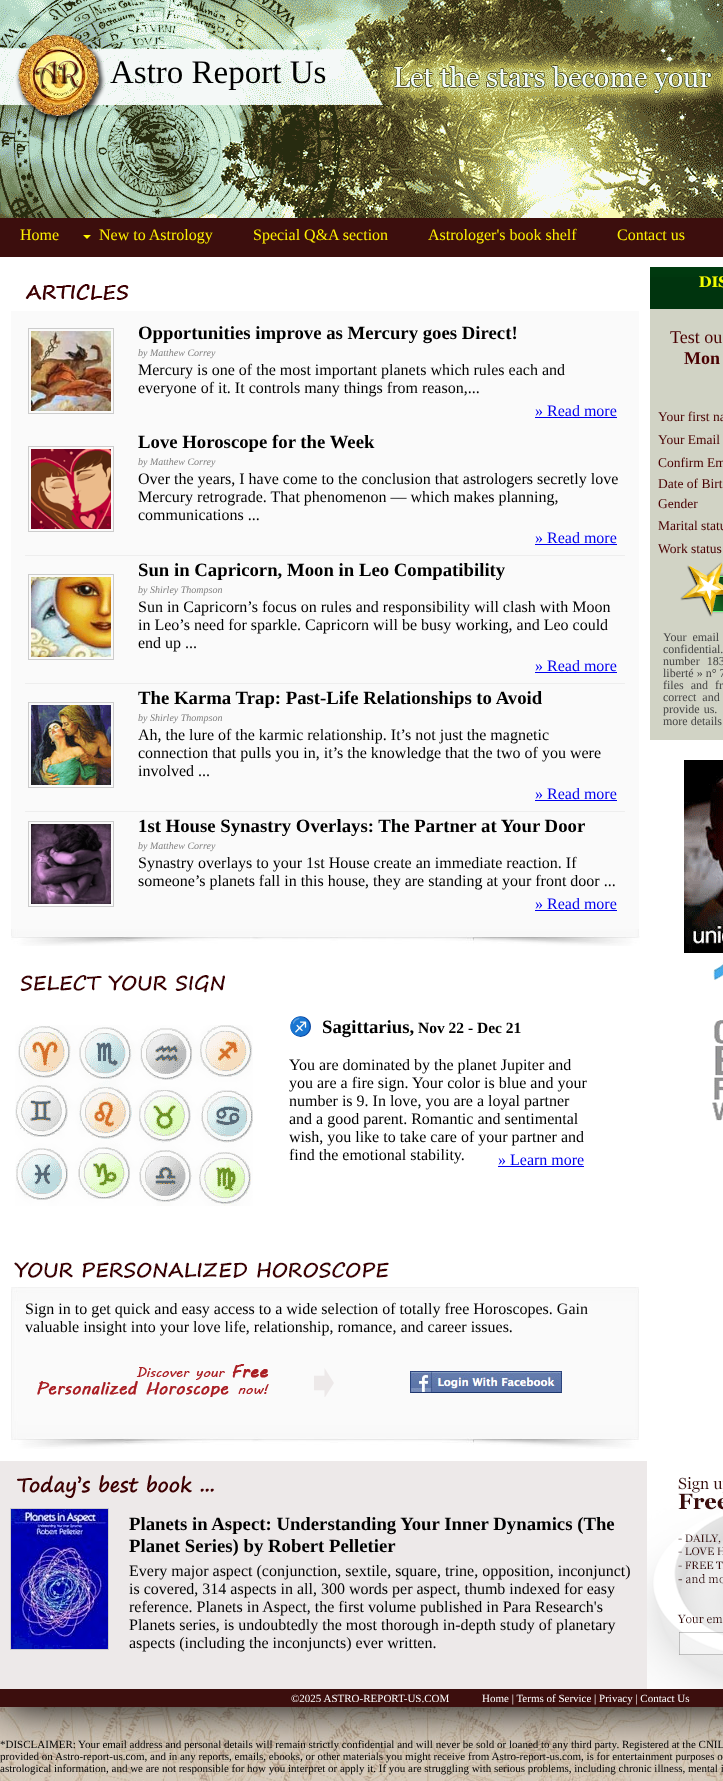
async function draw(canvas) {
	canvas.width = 723;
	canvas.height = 1781;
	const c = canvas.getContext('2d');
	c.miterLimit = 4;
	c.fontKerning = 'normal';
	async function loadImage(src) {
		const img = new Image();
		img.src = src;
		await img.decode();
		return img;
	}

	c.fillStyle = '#fff';
	c.fillRect(0, 0, 723, 1781);
	c.drawImage(await loadImage('img1.png'), 0, 1707, 723, 74);
	c.fillStyle = '#000';
	c.filter = 'blur(22px)';
	c.beginPath();
	c.rect(1, -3, 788, 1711);
	c.fill();
	c.filter = 'none';
	c.fillStyle = '#fff';
	c.fillRect(0, 257, 723, 1204);
	c.drawImage(await loadImage('img2.png'), 0, 0, 723, 218);
	c.drawImage(await loadImage('img3.png'), 15, 33, 91, 91);
	c.font = '33px Liberation Serif';
	c.fillStyle = '#000';
	c.fillText('Astro Report Us', 110, 83);
	c.fillStyle = '#3c0e0d';
	c.fillRect(0, 218, 723, 39);
	c.font = '16px Liberation Serif';
	c.fillStyle = '#fff000';
	c.fillText('Home', 20, 240);
	c.drawImage(await loadImage('img4.png'), 83, 235, 8, 4);
	for (const [text, x, y] of [
		['New to Astrology', 99, 240],
		['Special Q&A section', 253, 240],
		['Astrologer\'s book shelf', 428, 240],
		['Contact us', 617, 240],
	]) {
		c.fillText(text, x, y);
	}
	c.drawImage(await loadImage('img5.png'), 25, 284, 104, 16);
	c.fillStyle = '#fafafa';
	c.fillRect(11, 311, 628, 618);
	c.strokeStyle = '#ccc';
	c.strokeRect(28.5, 328.5, 85, 85);
	c.drawImage(await loadImage('img6.png'), 31, 331, 80, 80);
	c.font = 'bold 18.75px Liberation Serif';
	c.fillStyle = '#000';
	c.fillText('Opportunities improve as Mercury goes Direct!', 138, 339);
	c.font = 'italic 10px Liberation Serif';
	c.fillStyle = '#808080';
	c.fillText('by Matthew Correy', 138, 356);
	c.font = '16px Liberation Serif';
	c.fillStyle = '#000';
	c.fillText('Mercury is one of the most important planets which rules each and', 138, 375);
	c.fillText('everyone of it. It controls many things from reason,...', 138, 393);
	c.fillStyle = '#00e';
	c.fillText('» Read more', 535, 416);
	c.fillRect(535, 417, 82, 1);
	c.strokeRect(28.5, 446.5, 85, 85);
	c.drawImage(await loadImage('img7.png'), 31, 449, 80, 80);
	c.font = 'bold 18.75px Liberation Serif';
	c.fillStyle = '#000';
	c.fillText('Love Horoscope for the Week', 138, 448);
	c.font = 'italic 10px Liberation Serif';
	c.fillStyle = '#808080';
	c.fillText('by Matthew Correy', 138, 465);
	c.font = '16px Liberation Serif';
	c.fillStyle = '#000';
	for (const [text, x, y] of [
		['Over the years, I have come to the conclusion that astrologers secretly love', 138, 484],
		['Mercury retrograde. That phenomenon — which makes planning,', 138, 502],
		['communications ...', 138, 520],
	]) {
		c.fillText(text, x, y);
	}
	c.fillStyle = '#00e';
	c.fillText('» Read more', 535, 543);
	c.fillRect(535, 544, 82, 1);
	c.fillStyle = '#eee';
	c.fillRect(25, 555, 600, 1);
	c.strokeRect(28.5, 574.5, 85, 85);
	c.drawImage(await loadImage('img8.png'), 31, 577, 80, 80);
	c.font = 'bold 18.75px Liberation Serif';
	c.fillStyle = '#000';
	c.fillText('Sun in Capricorn, Moon in Leo Compatibility', 138, 576);
	c.font = 'italic 10px Liberation Serif';
	c.fillStyle = '#808080';
	c.fillText('by Shirley Thompson', 138, 593);
	c.font = '16px Liberation Serif';
	c.fillStyle = '#000';
	for (const [text, x, y] of [
		['Sun in Capricorn’s focus on rules and responsibility will clash with Moon', 138, 612],
		['in Leo’s need for sparkle. Capricorn will be busy working, and Leo could', 138, 630],
		['end up ...', 138, 648],
	]) {
		c.fillText(text, x, y);
	}
	c.fillStyle = '#00e';
	c.fillText('» Read more', 535, 671);
	c.fillRect(535, 672, 82, 1);
	c.fillStyle = '#eee';
	c.fillRect(25, 683, 600, 1);
	c.strokeRect(28.5, 702.5, 85, 85);
	c.drawImage(await loadImage('img9.png'), 31, 705, 80, 80);
	c.font = 'bold 18.75px Liberation Serif';
	c.fillStyle = '#000';
	c.fillText('The Karma Trap: Past-Life Relationships to Avoid', 138, 704);
	c.font = 'italic 10px Liberation Serif';
	c.fillStyle = '#808080';
	c.fillText('by Shirley Thompson', 138, 721);
	c.font = '16px Liberation Serif';
	c.fillStyle = '#000';
	for (const [text, x, y] of [
		['Ah, the lure of the karmic relationship. It’s not just the magnetic', 138, 740],
		['connection that pulls you in, it’s the knowledge that the two of you were', 138, 758],
		['involved ...', 138, 776],
	]) {
		c.fillText(text, x, y);
	}
	c.fillStyle = '#00e';
	c.fillText('» Read more', 535, 799);
	c.fillRect(535, 800, 82, 1);
	c.fillStyle = '#eee';
	c.fillRect(25, 811, 600, 1);
	c.strokeRect(28.5, 821.5, 85, 85);
	c.drawImage(await loadImage('img10.png'), 31, 824, 80, 80);
	c.font = 'bold 18.75px Liberation Serif';
	c.fillStyle = '#000';
	c.fillText('1st House Synastry Overlays: The Partner at Your Door', 138, 832);
	c.font = 'italic 10px Liberation Serif';
	c.fillStyle = '#808080';
	c.fillText('by Matthew Correy', 138, 849);
	c.font = '16px Liberation Serif';
	c.fillStyle = '#000';
	c.fillText('Synastry overlays to your 1st House create an immediate reaction. If', 138, 868);
	c.fillText('someone’s planets fall in this house, they are standing at your front door ...', 138, 886);
	c.fillStyle = '#00e';
	c.fillText('» Read more', 535, 909);
	c.fillRect(535, 910, 82, 1);
	c.drawImage(await loadImage('img11.png'), 11, 929, 629, 17);
	c.drawImage(await loadImage('img12.png'), 20, 975, 205, 18);
	c.drawImage(await loadImage('img13.png'), 15, 1025, 238, 181);
	c.font = 'bold 18.75px Noto Color Emoji';
	c.fillStyle = '#000';
	c.fillText('♐', 289, 1033);
	c.font = 'bold 18.75px Liberation Serif';
	c.fillText('Sagittarius,', 322, 1033);
	c.font = 'bold 15.5px Liberation Serif';
	c.fillText('Nov 22 - Dec 21', 418, 1033);
	c.font = '16px Liberation Serif';
	for (const [text, x, y] of [
		['You are dominated by the planet Jupiter and', 289, 1070],
		['you are a fire sign. Your color is blue and your', 289, 1088],
		['number is 9. In love, you are a loyal partner', 289, 1106],
		['and a good parent. Romantic and sentimental', 289, 1124],
		['wish, you like to take care of your partner and', 289, 1142],
		['find the emotional stability.', 289, 1160],
	]) {
		c.fillText(text, x, y);
	}
	c.fillStyle = '#00e';
	c.fillText('» Learn more', 498, 1165);
	c.fillRect(498, 1166, 86, 1);
	c.drawImage(await loadImage('img14.png'), 14, 1262, 375, 16);
	c.drawImage(await loadImage('img15.png'), 11, 1287, 628, 162);
	c.fillStyle = '#000';
	c.fillText('Sign in to get quick and easy access to a wide selection of totally free Horoscopes. Gain', 25, 1314);
	c.fillText('valuable insight into your love life, relationship, romance, and career issues.', 25, 1332);
	c.drawImage(await loadImage('img16.png'), 37, 1364, 297, 33);
	c.drawImage(await loadImage('img17.png'), 410, 1371, 152, 22);
	c.drawImage(await loadImage('img18.png'), 650, 267, 73, 42);
	c.fillStyle = '#d1d3c5';
	c.fillRect(650, 309, 73, 431);
	c.font = '18px Liberation Serif';
	c.fillStyle = '#490002';
	c.fillText('Test ou', 670, 343);
	c.font = 'bold 18px Liberation Serif';
	c.fillText('Mon', 684, 364);
	c.font = '13.5px Liberation Serif';
	for (const [text, x, y] of [
		['Your first na', 658, 421],
		['Your Email', 658, 444],
		['Confirm Em', 658, 467],
		['Date of Birt', 658, 488],
		['Gender', 658, 508],
		['Marital statu', 658, 530],
		['Work status', 658, 553],
	]) {
		c.fillText(text, x, y);
	}
	c.drawImage(await loadImage('img19.png'), 680, 562, 43, 55);
	c.wordSpacing = '3px';
	c.font = '12px Liberation Serif';
	c.fillStyle = '#444';
	c.fillText('Your email', 663, 641);
	c.wordSpacing = '5px';
	c.fillText('confidential.', 663, 653);
	c.wordSpacing = '4px';
	c.fillText('number 183', 663, 665);
	c.wordSpacing = '0px';
	c.fillText('liberté » n° 7', 663, 677);
	c.wordSpacing = '4px';
	c.fillText('files and fr', 663, 689);
	c.wordSpacing = '3px';
	c.fillText('correct and', 663, 701);
	c.wordSpacing = '1px';
	c.fillText('provide us.', 663, 713);
	c.wordSpacing = '0px';
	c.fillText('more details', 663, 725);
	c.drawImage(await loadImage('img20.png'), 684, 760, 39, 361);
	c.fillStyle = '#ede9e9';
	c.fillRect(0, 1461, 647, 228);
	c.drawImage(await loadImage('img21.png'), 647, 1461, 76, 228);
	c.drawImage(await loadImage('img22.png'), 17, 1475, 197, 23);
	c.strokeRect(10.5, 1508.5, 98, 141);
	c.drawImage(await loadImage('img23.png'), 11, 1509, 97, 140);
	c.font = 'bold 18.75px Liberation Serif';
	c.fillStyle = '#000';
	c.fillText('Planets in Aspect: Understanding Your Inner Dynamics (The', 129, 1530);
	c.fillText('Planet Series) by Robert Pelletier', 129, 1552);
	c.font = '16px Liberation Serif';
	for (const [text, x, y] of [
		['Every major aspect (conjunction, sextile, square, trine, opposition, inconjunct)', 129, 1576],
		['is covered, 314 aspects in all, 300 words per aspect, thumb indexed for easy', 129, 1594],
		['reference. Planets in Aspect, the first volume published in Para Research\'s', 129, 1612],
		['Planets series, is undoubtedly the most thorough in-depth study of planetary', 129, 1630],
		['aspects (including the inconjuncts) ever written.', 129, 1648],
	]) {
		c.fillText(text, x, y);
	}
	c.fillStyle = '#3c0e0d';
	c.fillRect(0, 1689, 723, 18);
	c.font = '11px Liberation Serif';
	c.fillStyle = '#fff';
	c.fillText('©2025 ASTRO-REPORT-US.COM', 291, 1702);
	c.fillText('Home | Terms of Service | Privacy | Contact Us', 482, 1702);
	c.fillStyle = '#000';
	for (const [text, x, y] of [
		['*DISCLAIMER: Your email address and personal details will remain strictly confidential and will never be sold or loaned to any third party. Registered at the CNIL', 0, 1748],
		['provided on Astro-report-us.com, and in any reports, emails, ebooks, or other materials you might receive from Astro-report-us.com, is for entertainment purposes o', 0, 1760],
		['astrological information, and we are not responsible for how you interpret or apply it. If you are struggling with serious problems, including chronic illness, mental i', 0, 1772],
	]) {
		c.fillText(text, x, y);
	}
}

draw(document.querySelector('canvas'));
